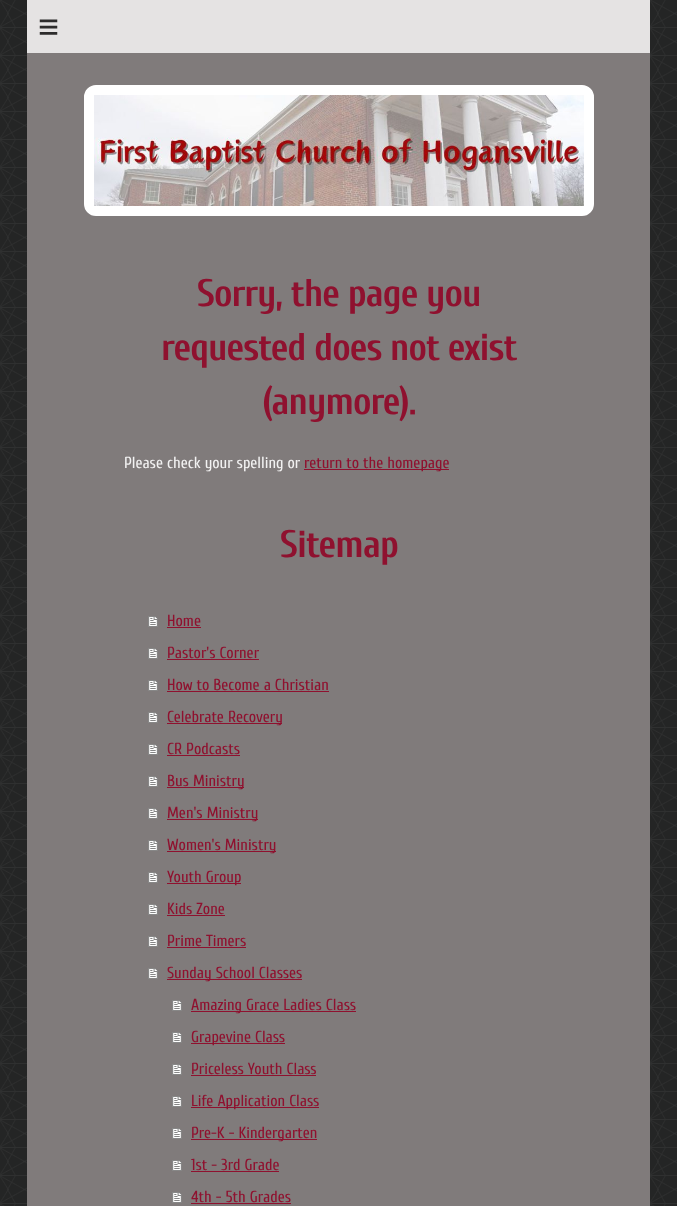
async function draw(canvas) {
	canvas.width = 677;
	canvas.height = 1206;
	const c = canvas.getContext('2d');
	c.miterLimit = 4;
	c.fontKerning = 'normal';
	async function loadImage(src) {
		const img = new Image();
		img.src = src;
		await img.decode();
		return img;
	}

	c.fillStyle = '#242525';
	c.fillRect(0, 0, 677, 1206);
	c.drawImage(await loadImage('img1.png'), 0, 0, 677, 1206);
	c.fillStyle = '#e5e3e3';
	c.fillRect(27, 0, 623, 53);
	c.letterSpacing = '10px';
	c.font = '36px Liberation Sans';
	c.fillStyle = '#2d2c2c';
	c.fillText('≡', 38, 39);
	c.fillStyle = '#807b7b';
	c.fillRect(27, 53, 623, 1153);
	c.beginPath();
	c.roundRect(89, 90, 500, 121, 7);
	c.strokeStyle = '#fff';
	c.lineWidth = 10;
	c.stroke();
	c.drawImage(await loadImage('img2.png'), 94, 95, 490, 111);
	c.letterSpacing = '-1px';
	c.font = 'bold 38.5px Cuprum';
	c.fillStyle = '#8f112f';
	for (const [text, x, y] of [
		['Sorry, the page you', 197, 306],
		['requested does not exist', 161, 360],
		['(anymore).', 262, 414],
	]) {
		c.fillText(text, x, y);
	}
	c.letterSpacing = '0px';
	c.font = '16px Cuprum';
	c.fillStyle = '#f2f2f2';
	c.fillText('Please check your spelling or', 124, 468);
	c.fillStyle = '#8f112f';
	c.fillRect(304, 469, 145, 1);
	c.fillText('return to the homepage', 304, 468);
	c.letterSpacing = '-1px';
	c.font = 'bold 38.5px Cuprum';
	c.fillText('Sitemap', 280, 557);
	c.drawImage(await loadImage('img3.png'), 148, 616, 10, 11);
	c.letterSpacing = '0px';
	c.font = '16px Cuprum';
	c.fillText('Home', 167, 626);
	c.fillRect(167, 627, 34, 1);
	c.drawImage(await loadImage('img3.png'), 148, 648, 10, 11);
	c.fillText('Pastor\'s Corner', 167, 658);
	c.fillRect(167, 659, 92, 1);
	c.drawImage(await loadImage('img3.png'), 148, 680, 10, 11);
	c.fillText('How to Become a Christian', 167, 690);
	c.fillRect(167, 691, 162, 1);
	c.drawImage(await loadImage('img3.png'), 148, 712, 10, 11);
	c.fillRect(167, 723, 115, 1);
	c.fillText('Celebrate Recovery', 167, 722);
	c.drawImage(await loadImage('img3.png'), 148, 744, 10, 11);
	c.fillText('CR Podcasts', 167, 754);
	c.fillRect(167, 755, 73, 1);
	c.drawImage(await loadImage('img3.png'), 148, 776, 10, 11);
	c.fillRect(167, 787, 77, 1);
	c.fillText('Bus Ministry', 167, 786);
	c.drawImage(await loadImage('img3.png'), 148, 808, 10, 11);
	c.fillRect(167, 819, 91, 1);
	c.fillText('Men\'s Ministry', 167, 818);
	c.drawImage(await loadImage('img3.png'), 148, 840, 10, 11);
	c.fillRect(167, 851, 109, 1);
	c.fillText('Women\'s Ministry', 167, 850);
	c.drawImage(await loadImage('img3.png'), 148, 872, 10, 11);
	c.fillRect(167, 883, 74, 1);
	c.fillText('Youth Group', 167, 882);
	c.drawImage(await loadImage('img3.png'), 148, 904, 10, 11);
	c.fillText('Kids Zone', 167, 914);
	c.fillRect(167, 915, 58, 1);
	c.drawImage(await loadImage('img3.png'), 148, 936, 10, 11);
	c.fillText('Prime Timers', 167, 946);
	c.fillRect(167, 947, 79, 1);
	c.drawImage(await loadImage('img3.png'), 148, 968, 10, 11);
	c.fillRect(167, 979, 135, 1);
	c.fillText('Sunday School Classes', 167, 978);
	c.drawImage(await loadImage('img3.png'), 172, 1000, 10, 11);
	c.fillRect(191, 1011, 165, 1);
	c.fillText('Amazing Grace Ladies Class', 191, 1010);
	c.drawImage(await loadImage('img3.png'), 172, 1032, 10, 11);
	c.fillRect(191, 1043, 94, 1);
	c.fillText('Grapevine Class', 191, 1042);
	c.drawImage(await loadImage('img3.png'), 172, 1064, 10, 11);
	c.fillText('Priceless Youth Class', 191, 1074);
	c.fillRect(191, 1075, 125, 1);
	c.drawImage(await loadImage('img3.png'), 172, 1096, 10, 11);
	c.fillRect(191, 1107, 128, 1);
	c.fillText('Life Application Class', 191, 1106);
	c.drawImage(await loadImage('img3.png'), 172, 1128, 10, 11);
	c.fillRect(191, 1139, 126, 1);
	c.fillText('Pre-K - Kindergarten', 191, 1138);
	c.drawImage(await loadImage('img3.png'), 172, 1160, 10, 11);
	c.fillText('1st - 3rd Grade', 191, 1170);
	c.fillRect(191, 1171, 88, 1);
	c.drawImage(await loadImage('img3.png'), 172, 1192, 10, 11);
	c.fillText('4th - 5th Grades', 191, 1202);
	c.fillRect(191, 1203, 100, 1);
}

draw(document.querySelector('canvas'));
